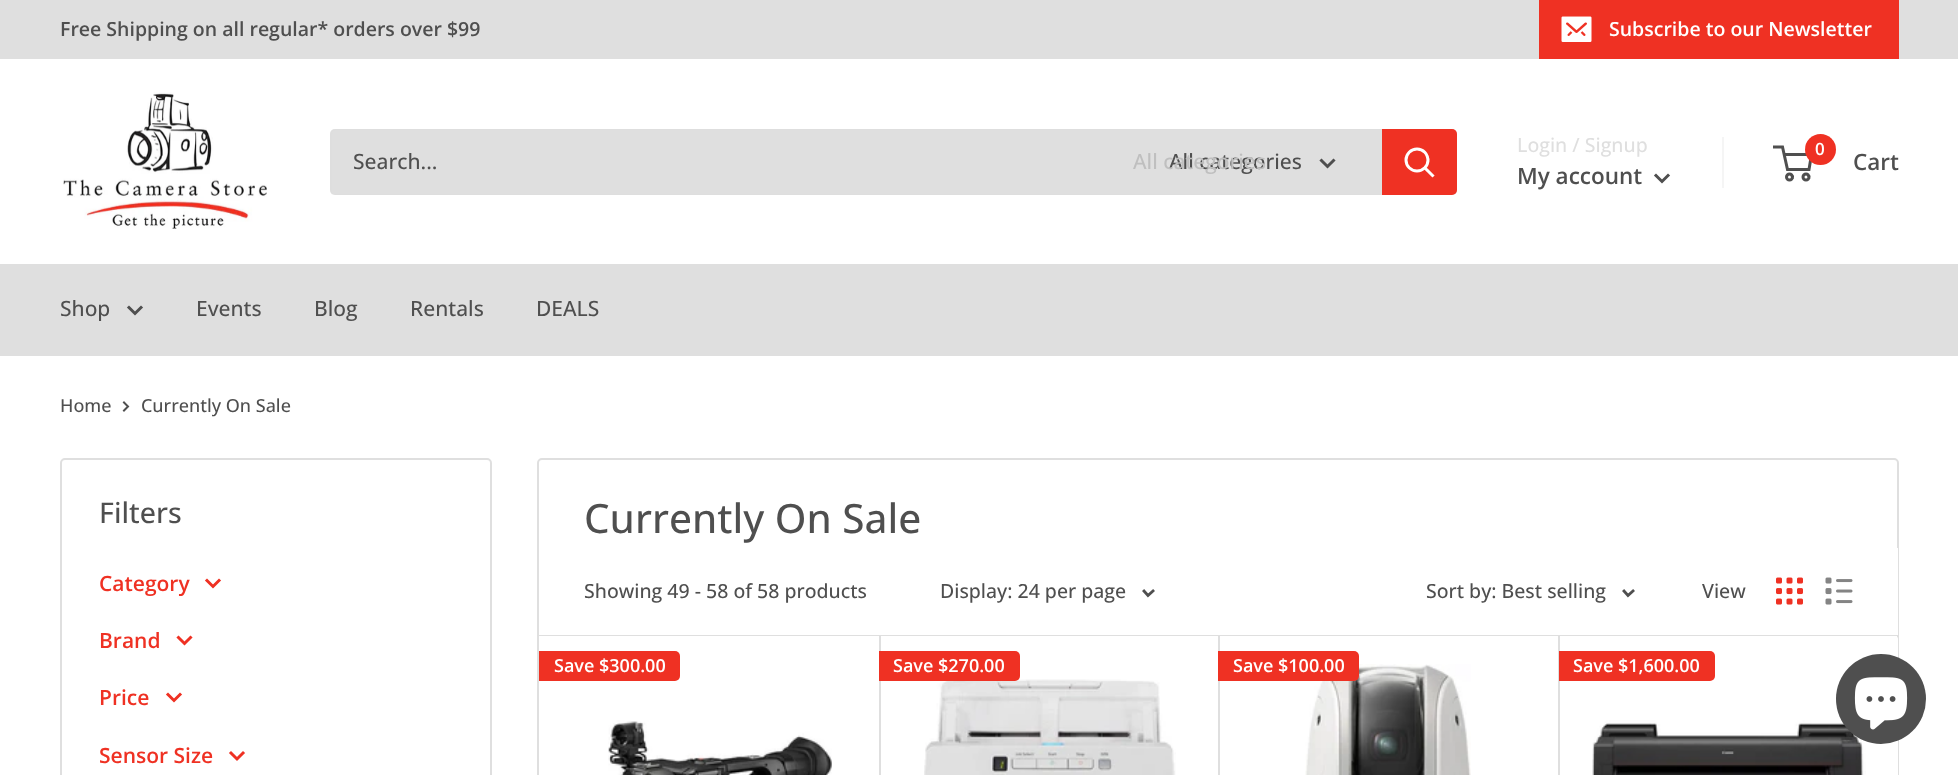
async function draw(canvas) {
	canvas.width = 1958;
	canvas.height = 775;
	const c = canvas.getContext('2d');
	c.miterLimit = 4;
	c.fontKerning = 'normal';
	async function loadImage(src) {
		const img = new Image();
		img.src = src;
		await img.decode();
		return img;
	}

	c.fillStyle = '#fff';
	c.fillRect(0, 0, 1958, 775);
	c.fillStyle = '#dfdfdf';
	c.fillRect(0, 0, 1958, 59);
	c.font = '600 19.5px Open Sans';
	c.fillStyle = '#4f4f4f';
	c.fillText('Free Shipping on all regular* orders over $99', 60, 36);
	c.fillStyle = '#ef3123';
	c.fillRect(1539, 0, 360, 59);
	c.drawImage(await loadImage('img1.png'), 1561, 16, 31, 26);
	c.fillStyle = '#fff';
	c.fillText('Subscribe to our Newsletter', 1609, 36);
	c.drawImage(await loadImage('img2.png'), 63, 92, 204, 137);
	c.fillStyle = '#dfdfdf';
	c.beginPath();
	c.roundRect(330, 129, 1127, 66, 5);
	c.fill();
	c.fillStyle = '#dfdfdf4d';
	c.beginPath();
	c.moveTo(331, 194);
	c.bezierCurveTo(332, 194, 334, 195, 335, 195);
	c.lineTo(1452, 195);
	c.bezierCurveTo(1455, 195, 1457, 193, 1457, 190);
	c.lineTo(1457, 134);
	c.bezierCurveTo(1457, 132, 1456, 130, 1454, 129);
	c.bezierCurveTo(1455, 130, 1455, 131, 1455, 132);
	c.lineTo(1455, 189);
	c.bezierCurveTo(1455, 191, 1453, 194, 1450, 194);
	c.lineTo(333, 194);
	c.closePath();
	c.fill();
	c.beginPath();
	c.moveTo(336, 130);
	c.lineTo(1454, 130);
	c.lineTo(1456, 131);
	c.bezierCurveTo(1455, 130, 1454, 129, 1452, 129);
	c.lineTo(335, 129);
	c.bezierCurveTo(332, 129, 330, 131, 330, 134);
	c.lineTo(330, 190);
	c.bezierCurveTo(330, 192, 331, 194, 333, 195);
	c.bezierCurveTo(332, 194, 332, 193, 332, 192);
	c.lineTo(332, 135);
	c.bezierCurveTo(332, 133, 334, 130, 336, 130);
	c.closePath();
	c.fill();
	c.font = '500 21px Open Sans';
	c.fillStyle = '#4f4f4f';
	c.fillText('Search...', 353, 169);
	c.fillText('All categories', 1169, 169);
	c.fillStyle = '#bfbfbf';
	c.fillText('All categories', 1133, 169);
	c.beginPath();
	c.moveTo(1333.5, 160.5);
	c.lineTo(1327.5, 166.5);
	c.lineTo(1321.5, 160.5);
	c.strokeStyle = '#4f4f4f';
	c.lineWidth = 3;
	c.lineCap = 'square';
	c.stroke();
	c.fillStyle = '#ef3123';
	c.beginPath();
	c.roundRect(1382, 129, 75, 66, [0, 5, 5, 0]);
	c.fill();
	c.beginPath();
	c.moveTo(1432.5, 175.5);
	c.lineTo(1425, 168);
	c.strokeStyle = '#fff';
	c.stroke();
	c.beginPath();
	c.arc(1417, 160, 11, 0, 2 * Math.PI);
	c.stroke();
	c.font = '500 19.5px Open Sans';
	c.fillStyle = '#dfdfdf';
	c.fillText('Login / Signup', 1517, 152);
	c.fillStyle = '#f5f5f5';
	c.fillRect(1722, 137, 2, 51);
	c.font = '600 22.5px Open Sans';
	c.fillStyle = '#4f4f4f';
	c.fillText('My account', 1517, 184);
	c.beginPath();
	c.moveTo(1668, 175.5);
	c.lineTo(1662, 181.5);
	c.lineTo(1656, 175.5);
	c.strokeStyle = '#4f4f4f';
	c.stroke();
	c.beginPath();
	c.arc(1789.5, 177, 3, 0, 2 * Math.PI);
	c.stroke();
	c.beginPath();
	c.arc(1806, 177, 3, 0, 2 * Math.PI);
	c.stroke();
	c.beginPath();
	c.moveTo(1784, 154.5);
	c.lineTo(1811.5, 154.5);
	c.lineTo(1809, 169.5);
	c.lineTo(1787.5, 169.5);
	c.lineTo(1782.5, 147);
	c.lineTo(1773, 147);
	c.lineCap = 'butt';
	c.stroke();
	c.fillStyle = '#ef3123';
	c.beginPath();
	c.arc(1820.5, 149.5, 15.5, 0, 2 * Math.PI);
	c.fill();
	c.font = '600 17px Open Sans';
	c.fillStyle = '#fff';
	c.fillText('0', 1815, 155);
	c.font = '600 22.5px Open Sans';
	c.fillStyle = '#4f4f4f';
	c.fillText('Cart', 1853, 170);
	c.fillStyle = '#dfdfdf';
	c.fillRect(0, 264, 1958, 92);
	c.font = '500 21px Open Sans';
	c.fillStyle = '#4f4f4f';
	c.fillText('Shop', 60, 316);
	c.beginPath();
	c.moveTo(141, 307.5);
	c.lineTo(135, 313.5);
	c.lineTo(129, 307.5);
	c.lineCap = 'square';
	c.stroke();
	for (const [text, x, y] of [
		['Events', 196, 316],
		['Blog', 314, 316],
		['Rentals', 410, 316],
		['DEALS', 536, 316],
	]) {
		c.fillText(text, x, y);
	}
	c.font = '500 18px Open Sans';
	c.fillText('Home', 60, 412);
	c.beginPath();
	c.moveTo(124, 402.5);
	c.lineTo(128, 406.5);
	c.lineTo(124, 410.5);
	c.lineWidth = 2;
	c.stroke();
	c.fillText('Currently On Sale', 141, 412);
	c.beginPath();
	c.roundRect(61, 459, 430, 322, 4);
	c.strokeStyle = '#dfdfdf';
	c.stroke();
	c.font = '500 28.5px Open Sans';
	c.fillText('Filters', 99, 523);
	c.font = '600 21px Open Sans';
	c.fillStyle = '#ef3123';
	c.fillText('Category', 99, 591);
	c.beginPath();
	c.moveTo(219, 580.5);
	c.lineTo(213, 586.5);
	c.lineTo(207, 580.5);
	c.strokeStyle = '#ef3123';
	c.lineWidth = 3;
	c.stroke();
	c.fillText('Brand', 99, 648);
	c.beginPath();
	c.moveTo(190.5, 637.5);
	c.lineTo(184.5, 643.5);
	c.lineTo(178.5, 637.5);
	c.stroke();
	c.fillText('Price', 99, 705);
	c.beginPath();
	c.moveTo(180, 694.5);
	c.lineTo(174, 700.5);
	c.lineTo(168, 694.5);
	c.stroke();
	c.fillText('Sensor Size', 99, 763);
	c.beginPath();
	c.moveTo(243, 753);
	c.lineTo(237, 759);
	c.lineTo(231, 753);
	c.stroke();
	c.beginPath();
	c.roundRect(538, 459, 1360, 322, 4);
	c.strokeStyle = '#dfdfdf';
	c.lineWidth = 2;
	c.stroke();
	c.font = '500 40.5px Open Sans';
	c.fillStyle = '#4f4f4f';
	c.fillText('Currently On Sale', 584, 533);
	c.fillStyle = '#fff';
	c.beginPath();
	c.roundRect(539, 635, 1359, 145, 5);
	c.fill();
	c.fillStyle = '#dfdfdf';
	c.fillRect(879, 635, 2, 140);
	c.fillRect(1218, 635, 2, 140);
	c.fillStyle = '#fff';
	c.beginPath();
	c.moveTo(1559, 635);
	c.lineTo(1893, 635);
	c.bezierCurveTo(1896, 635, 1898, 637, 1898, 640);
	c.lineTo(1898, 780);
	c.lineTo(1559, 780);
	c.closePath();
	c.fill();
	c.fillStyle = '#dfdfdf';
	c.fillRect(1558, 635, 2, 140);
	c.beginPath();
	c.moveTo(539, 634);
	c.lineTo(539, 636);
	c.lineTo(1898, 636);
	c.lineTo(1898, 549);
	c.lineTo(1898, 634);
	c.closePath();
	c.fill();
	c.fillStyle = '#fff';
	c.fillRect(539, 548, 1359, 87);
	c.font = '500 19.5px Open Sans';
	c.fillStyle = '#4f4f4f';
	c.fillText('Showing 49 - 58 of 58 products', 584, 598);
	c.fillText('Display: 24 per page', 940, 598);
	c.beginPath();
	c.moveTo(1153, 591);
	c.lineTo(1148, 595.5);
	c.lineTo(1144, 591);
	c.strokeStyle = '#4f4f4f';
	c.lineWidth = 2.8;
	c.stroke();
	c.fillText('Sort by: Best selling', 1426, 598);
	c.beginPath();
	c.moveTo(1633, 591);
	c.lineTo(1628, 595.5);
	c.lineTo(1624, 591);
	c.stroke();
	c.fillText('View', 1702, 598);
	c.drawImage(await loadImage('img3.png'), 1776, 577, 27, 28);
	c.drawImage(await loadImage('img4.png'), 1825, 577, 28, 28);
	c.fillStyle = '#ef3123';
	c.beginPath();
	c.roundRect(539, 651, 141, 30, [0, 5, 5, 0]);
	c.fill();
	c.font = '600 18px Open Sans';
	c.fillStyle = '#fff';
	c.fillText('Save $300.00', 554, 672);
	c.drawImage(await loadImage('img5.png'), 608, 720, 224, 55);
	c.drawImage(await loadImage('img6.png'), 924, 679, 252, 96);
	c.fillStyle = '#ef3123';
	c.beginPath();
	c.roundRect(879, 651, 141, 30, [0, 5, 5, 0]);
	c.fill();
	c.fillStyle = '#fff';
	c.fillText('Save $270.00', 893, 672);
	c.drawImage(await loadImage('img7.png'), 1305, 664, 166, 111);
	c.fillStyle = '#ef3123';
	c.beginPath();
	c.roundRect(1218, 651, 141, 30, [0, 5, 5, 0]);
	c.fill();
	c.fillStyle = '#fff';
	c.fillText('Save $100.00', 1233, 672);
	c.fillStyle = '#ef3123';
	c.beginPath();
	c.roundRect(1559, 651, 156, 30, [0, 5, 5, 0]);
	c.fill();
	c.fillStyle = '#fff';
	c.fillText('Save $1,600.00', 1573, 672);
	c.drawImage(await loadImage('img8.png'), 1592, 720, 274, 55);
	c.fillStyle = '#4f4f4f';
	c.beginPath();
	c.arc(1881, 699, 45, 0, 2 * Math.PI);
	c.fill();
	c.drawImage(await loadImage('img9.png'), 1854, 677, 54, 53);
}

draw(document.querySelector('canvas'));
